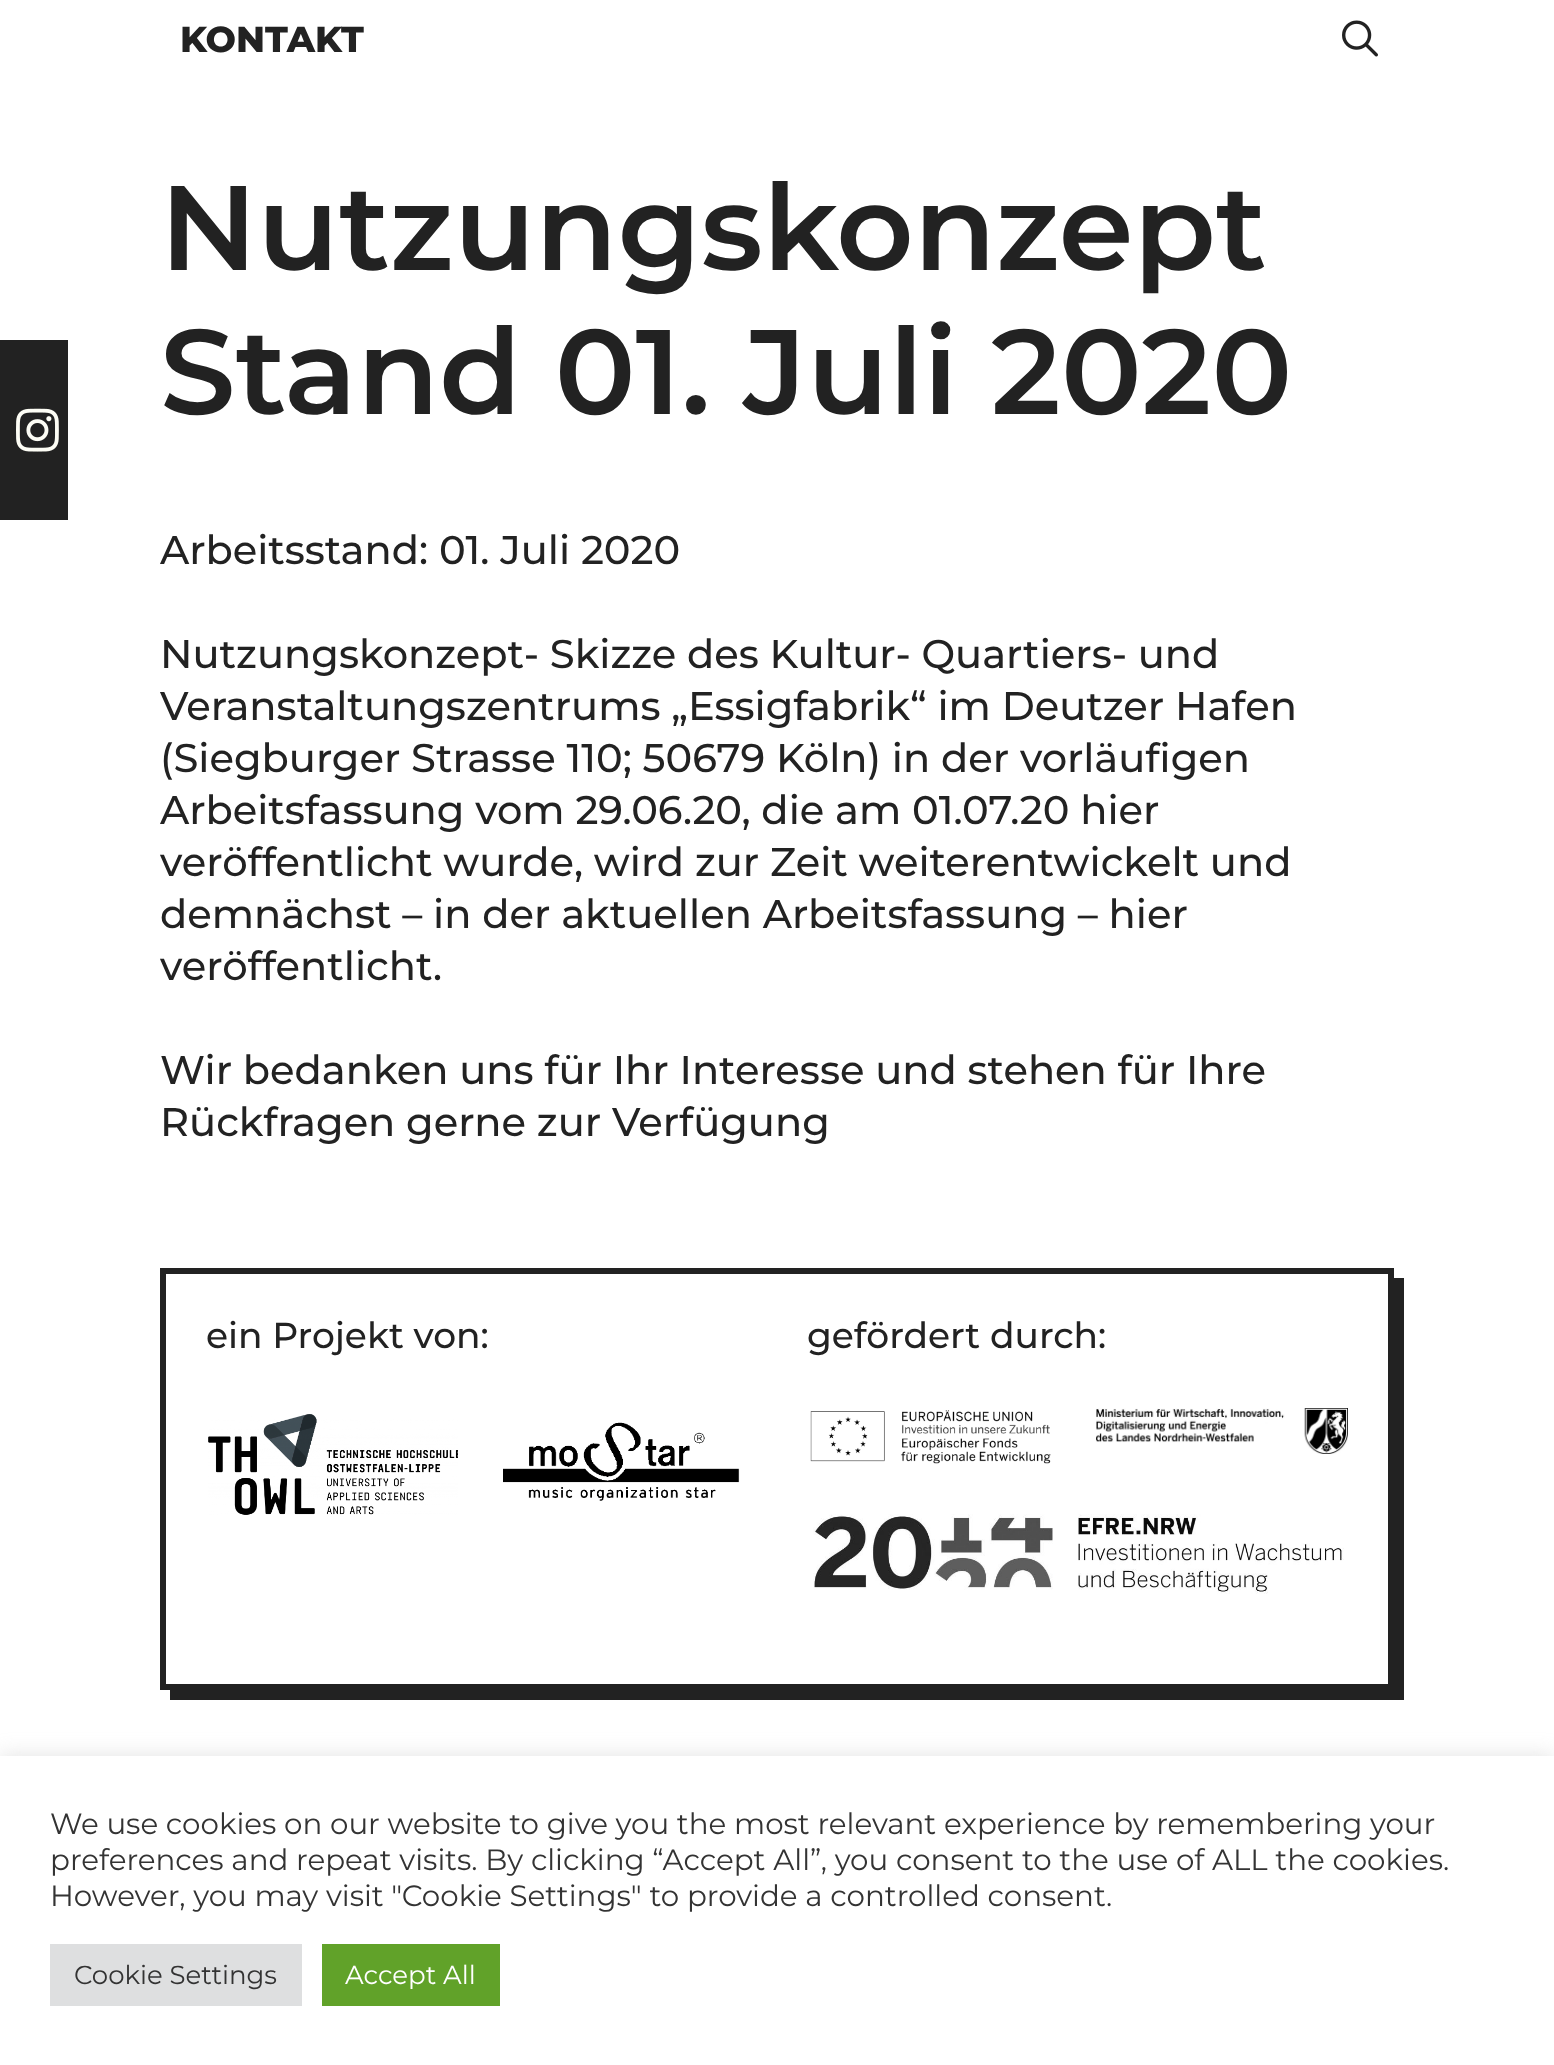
async function draw(canvas) {
	canvas.width = 1554;
	canvas.height = 2065;
	const c = canvas.getContext('2d');
	c.miterLimit = 4;
	c.fontKerning = 'normal';
	async function loadImage(src) {
		const img = new Image();
		img.src = src;
		await img.decode();
		return img;
	}

	c.fillStyle = '#fff';
	c.fillRect(0, 0, 1554, 2065);
	c.font = '800 36px Montserrat';
	c.fillStyle = '#222';
	c.fillText('KONTAKT', 180, 52);
	c.drawImage(await loadImage('img1.png'), 1342, 20, 36, 37);
	c.fillRect(0, 340, 68, 180);
	c.drawImage(await loadImage('img2.png'), 16, 408, 43, 44);
	c.font = '600 120px Montserrat';
	c.fillText('Nutzungskonzept', 160, 270);
	c.fillText('Stand 01. Juli 2020', 160, 414);
	c.font = '500 40px Montserrat';
	for (const [text, x, y] of [
		['Arbeitsstand: 01. Juli 2020', 160, 564],
		['Nutzungskonzept- Skizze des Kultur- Quartiers- und', 160, 668],
		['Veranstaltungszentrums „Essigfabrik“ im Deutzer Hafen', 160, 720],
		['(Siegburger Strasse 110; 50679 Köln) in der vorläufigen', 160, 772],
		['Arbeitsfassung vom 29.06.20, die am 01.07.20 hier', 160, 824],
		['veröffentlicht wurde, wird zur Zeit weiterentwickelt und', 160, 876],
		['demnächst – in der aktuellen Arbeitsfassung – hier', 160, 928],
		['veröffentlicht.', 160, 980],
		['Wir bedanken uns für Ihr Interesse und stehen für Ihre', 160, 1084],
		['Rückfragen gerne zur Verfügung', 160, 1136],
	]) {
		c.fillText(text, x, y);
	}
	c.beginPath();
	c.moveTo(170, 1690);
	c.lineTo(170, 1700);
	c.lineTo(1404, 1700);
	c.lineTo(1404, 1278);
	c.lineTo(1394, 1278);
	c.lineTo(1394, 1690);
	c.closePath();
	c.fill();
	c.strokeStyle = '#222';
	c.lineWidth = 6;
	c.strokeRect(163, 1271, 1228, 416);
	c.font = '500 36px Montserrat';
	c.fillText('ein Projekt von:', 206, 1348);
	c.drawImage(await loadImage('img3.png'), 208, 1414, 250, 101);
	c.drawImage(await loadImage('img4.png'), 503, 1422, 237, 79);
	c.fillText('gefördert durch:', 807, 1348);
	c.drawImage(await loadImage('img5.png'), 810, 1410, 241, 54);
	c.drawImage(await loadImage('img6.png'), 1096, 1408, 252, 46);
	c.drawImage(await loadImage('img7.png'), 813, 1514, 531, 80);
	c.fillStyle = '#acabab4d';
	c.filter = 'blur(10px)';
	c.beginPath();
	c.rect(0, 1754, 1554, 310);
	c.fill();
	c.filter = 'none';
	c.fillStyle = '#fff';
	c.fillRect(0, 1756, 1554, 309);
	c.font = '29.35px Montserrat';
	c.fillStyle = '#333';
	for (const [text, x, y] of [
		['We use cookies on our website to give you the most relevant experience by remembering your', 50, 1834],
		['preferences and repeat visits. By clicking “Accept All”, you consent to the use of ALL the cookies.', 50, 1870],
		['However, you may visit "Cookie Settings" to provide a controlled consent.', 50, 1906],
	]) {
		c.fillText(text, x, y);
	}
	c.fillStyle = '#dedfe0';
	c.fillRect(50, 1944, 252, 62);
	c.font = '26px Montserrat';
	c.fillStyle = '#333';
	c.fillText('Cookie Settings', 74, 1984);
	c.fillStyle = '#61a229';
	c.fillRect(322, 1944, 178, 62);
	c.fillStyle = '#fff';
	c.fillText('Accept All', 345, 1984);
}

draw(document.querySelector('canvas'));
